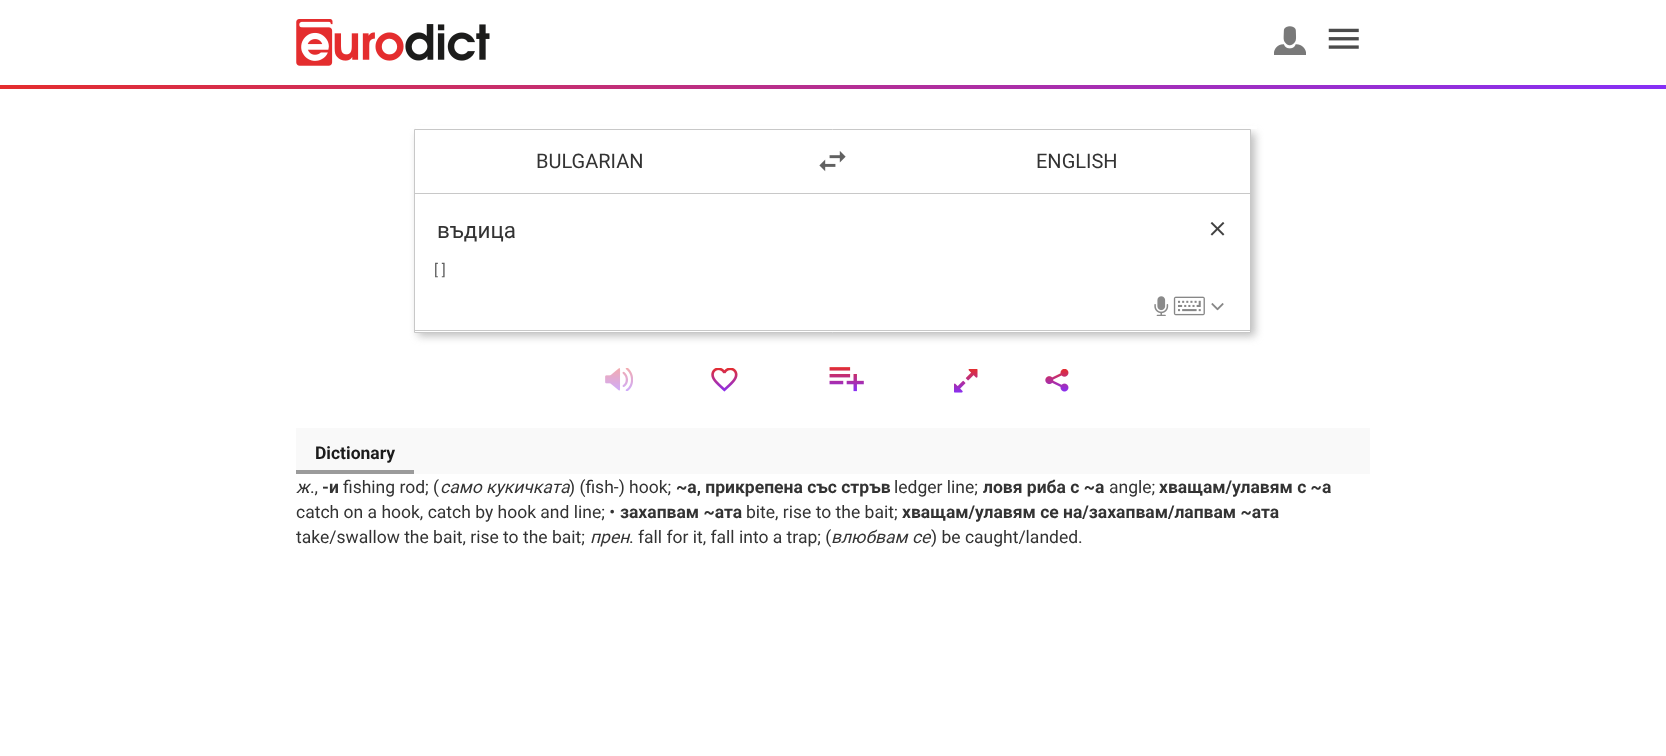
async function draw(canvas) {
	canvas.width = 1666;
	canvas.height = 756;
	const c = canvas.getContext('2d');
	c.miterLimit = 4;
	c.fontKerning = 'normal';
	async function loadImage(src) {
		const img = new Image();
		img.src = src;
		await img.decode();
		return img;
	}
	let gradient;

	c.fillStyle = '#fff';
	c.fillRect(0, 0, 1666, 756);
	c.drawImage(await loadImage('img1.png'), 296, 19, 194, 47);
	c.drawImage(await loadImage('img2.png'), 1274, 26, 32, 29);
	c.drawImage(await loadImage('img3.png'), 1328, 28, 31, 21);
	gradient = c.createLinearGradient(0, 87, 1666, 87);
	gradient.addColorStop(0, '#e42d2e');
	gradient.addColorStop(1, '#862ff6');
	c.fillStyle = gradient;
	c.fillRect(0, 85, 1666, 4);
	c.fillStyle = '#9595959e';
	c.filter = 'blur(4px)';
	c.beginPath();
	c.rect(418, 133, 837, 203);
	c.fill();
	c.filter = 'none';
	c.fillStyle = '#fff';
	c.fillRect(416, 126, 841, 3);
	c.beginPath();
	c.rect(414.5, 129.5, 836, 203);
	c.fill();
	c.strokeStyle = '#c8c8c8';
	c.stroke();
	c.fillStyle = '#c8c8c8';
	c.fillRect(415, 193, 835, 1);
	c.font = '20px Roboto';
	c.fillStyle = '#333';
	c.fillText('BULGARIAN', 536, 168);
	c.drawImage(await loadImage('img4.png'), 819, 151, 27, 21);
	c.fillText('ENGLISH', 1036, 168);
	c.fillStyle = '#c8c8c8';
	c.fillRect(415, 330, 835, 1);
	c.font = '22.5px Roboto';
	c.fillStyle = '#333';
	c.fillText('въдица', 437, 238);
	c.drawImage(await loadImage('img5.png'), 1210, 222, 15, 14);
	c.font = '15px Roboto';
	c.fillStyle = '#5f5f5f';
	c.fillText('[ ]', 434, 275);
	c.drawImage(await loadImage('img6.png'), 1154, 296, 15, 20);
	c.drawImage(await loadImage('img7.png'), 1173, 296, 32, 20);
	c.drawImage(await loadImage('img8.png'), 1211, 303, 13, 8);
	c.drawImage(await loadImage('img9.png'), 605, 368, 28, 23);
	c.drawImage(await loadImage('img10.png'), 711, 368, 27, 24);
	c.drawImage(await loadImage('img11.png'), 829, 367, 35, 25);
	c.drawImage(await loadImage('img12.png'), 954, 369, 24, 24);
	c.drawImage(await loadImage('img13.png'), 1045, 369, 24, 23);
	c.fillStyle = '#f9f9f9';
	c.fillRect(296, 428, 1074, 46);
	c.fillStyle = '#9b9b9b';
	c.fillRect(296, 470, 118, 4);
	c.font = 'bold 17.5px Roboto';
	c.fillStyle = '#1c1c1c';
	c.fillText('Dictionary', 315, 459);
	c.font = 'italic 17.5px Roboto';
	c.fillStyle = '#333';
	c.fillText('ж', 296, 493);
	c.font = '17.5px Roboto';
	c.fillText('.,', 310, 493);
	c.font = 'bold 17.5px Roboto';
	c.fillText('-и', 322, 493);
	c.font = '17.5px Roboto';
	c.fillText('fishing rod; (', 343, 493);
	c.font = 'italic 17.5px Roboto';
	c.fillText('само кукичката', 440, 493);
	c.font = '17.5px Roboto';
	c.fillText(') (fish-) hook;', 569, 493);
	c.font = 'bold 17.5px Roboto';
	c.fillText('~а, прикрепена със стръв', 676, 493);
	c.font = '17.5px Roboto';
	c.fillText('ledger line;', 894, 493);
	c.font = 'bold 17.5px Roboto';
	c.fillText('ловя риба с ~а', 983, 493);
	c.font = '17.5px Roboto';
	c.fillText('angle;', 1109, 493);
	c.font = 'bold 17.5px Roboto';
	c.fillText('хващам/улавям с ~а', 1159, 493);
	c.font = '17.5px Roboto';
	c.fillText('catch on a hook, catch by hook and line; •', 296, 518);
	c.font = 'bold 17.5px Roboto';
	c.fillText('захапвам ~ата', 620, 518);
	c.font = '17.5px Roboto';
	c.fillText('bite, rise to the bait;', 746, 518);
	c.font = 'bold 17.5px Roboto';
	c.fillText('хващам/улавям се на/захапвам/лапвам ~ата', 902, 518);
	c.font = '17.5px Roboto';
	c.fillText('take/swallow the bait, rise to the bait;', 296, 543);
	c.font = 'italic 17.5px Roboto';
	c.fillText('прен', 590, 543);
	c.font = '17.5px Roboto';
	c.fillText('. fall for it, fall into a trap; (', 629, 543);
	c.font = 'italic 17.5px Roboto';
	c.fillText('влюбвам се', 831, 543);
	c.font = '17.5px Roboto';
	c.fillText(') be caught/landed.', 931, 543);
}

draw(document.querySelector('canvas'));
